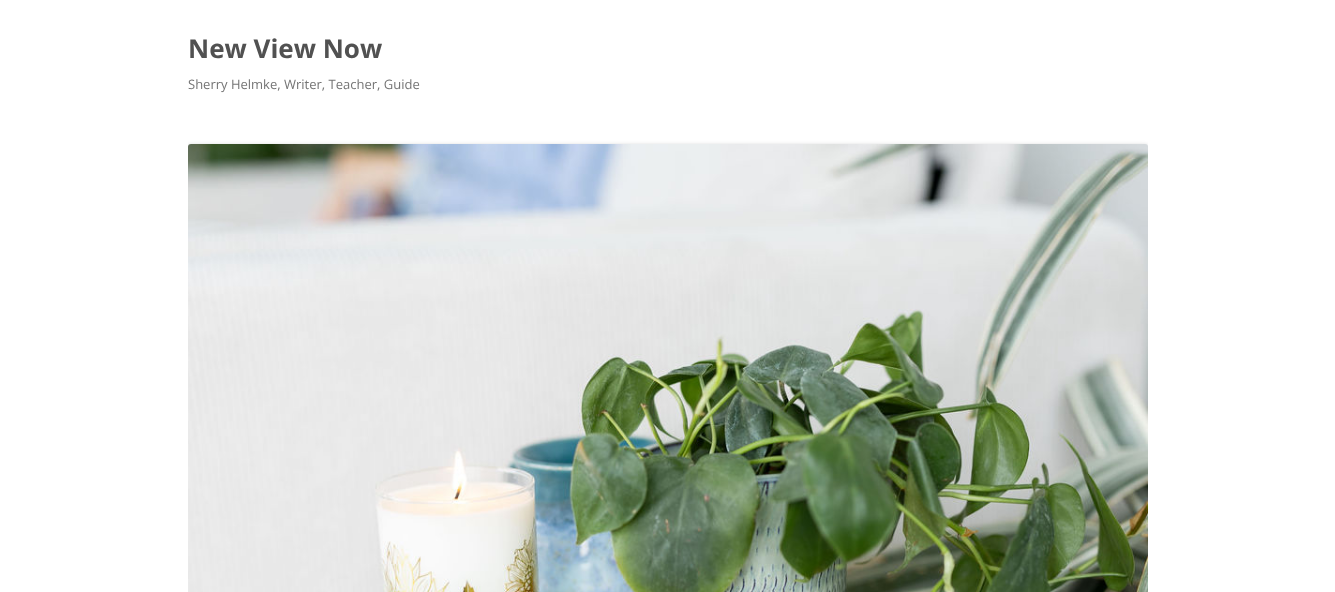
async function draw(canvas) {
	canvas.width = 1335;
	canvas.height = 592;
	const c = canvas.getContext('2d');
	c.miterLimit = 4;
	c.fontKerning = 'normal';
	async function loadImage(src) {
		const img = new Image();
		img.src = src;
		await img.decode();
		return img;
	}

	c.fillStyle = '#fff';
	c.fillRect(0, 0, 1335, 592);
	c.font = 'bold 26px Open Sans';
	c.fillStyle = '#515151';
	c.fillText('New View Now', 188, 58);
	c.font = '13px Open Sans';
	c.fillStyle = '#757575';
	c.fillText('Sherry Helmke, Writer, Teacher, Guide', 188, 89);
	c.save();
	c.beginPath();
	c.rect(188, 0, 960, 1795);
	c.clip();
	c.fillStyle = '#00000033';
	c.filter = 'blur(2px)';
	c.beginPath();
	c.roundRect(188, 145, 960, 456, 3);
	c.fill();
	c.filter = 'none';
	c.restore();
	c.drawImage(await loadImage('img1.png'), 188, 144, 960, 448);
}

draw(document.querySelector('canvas'));
